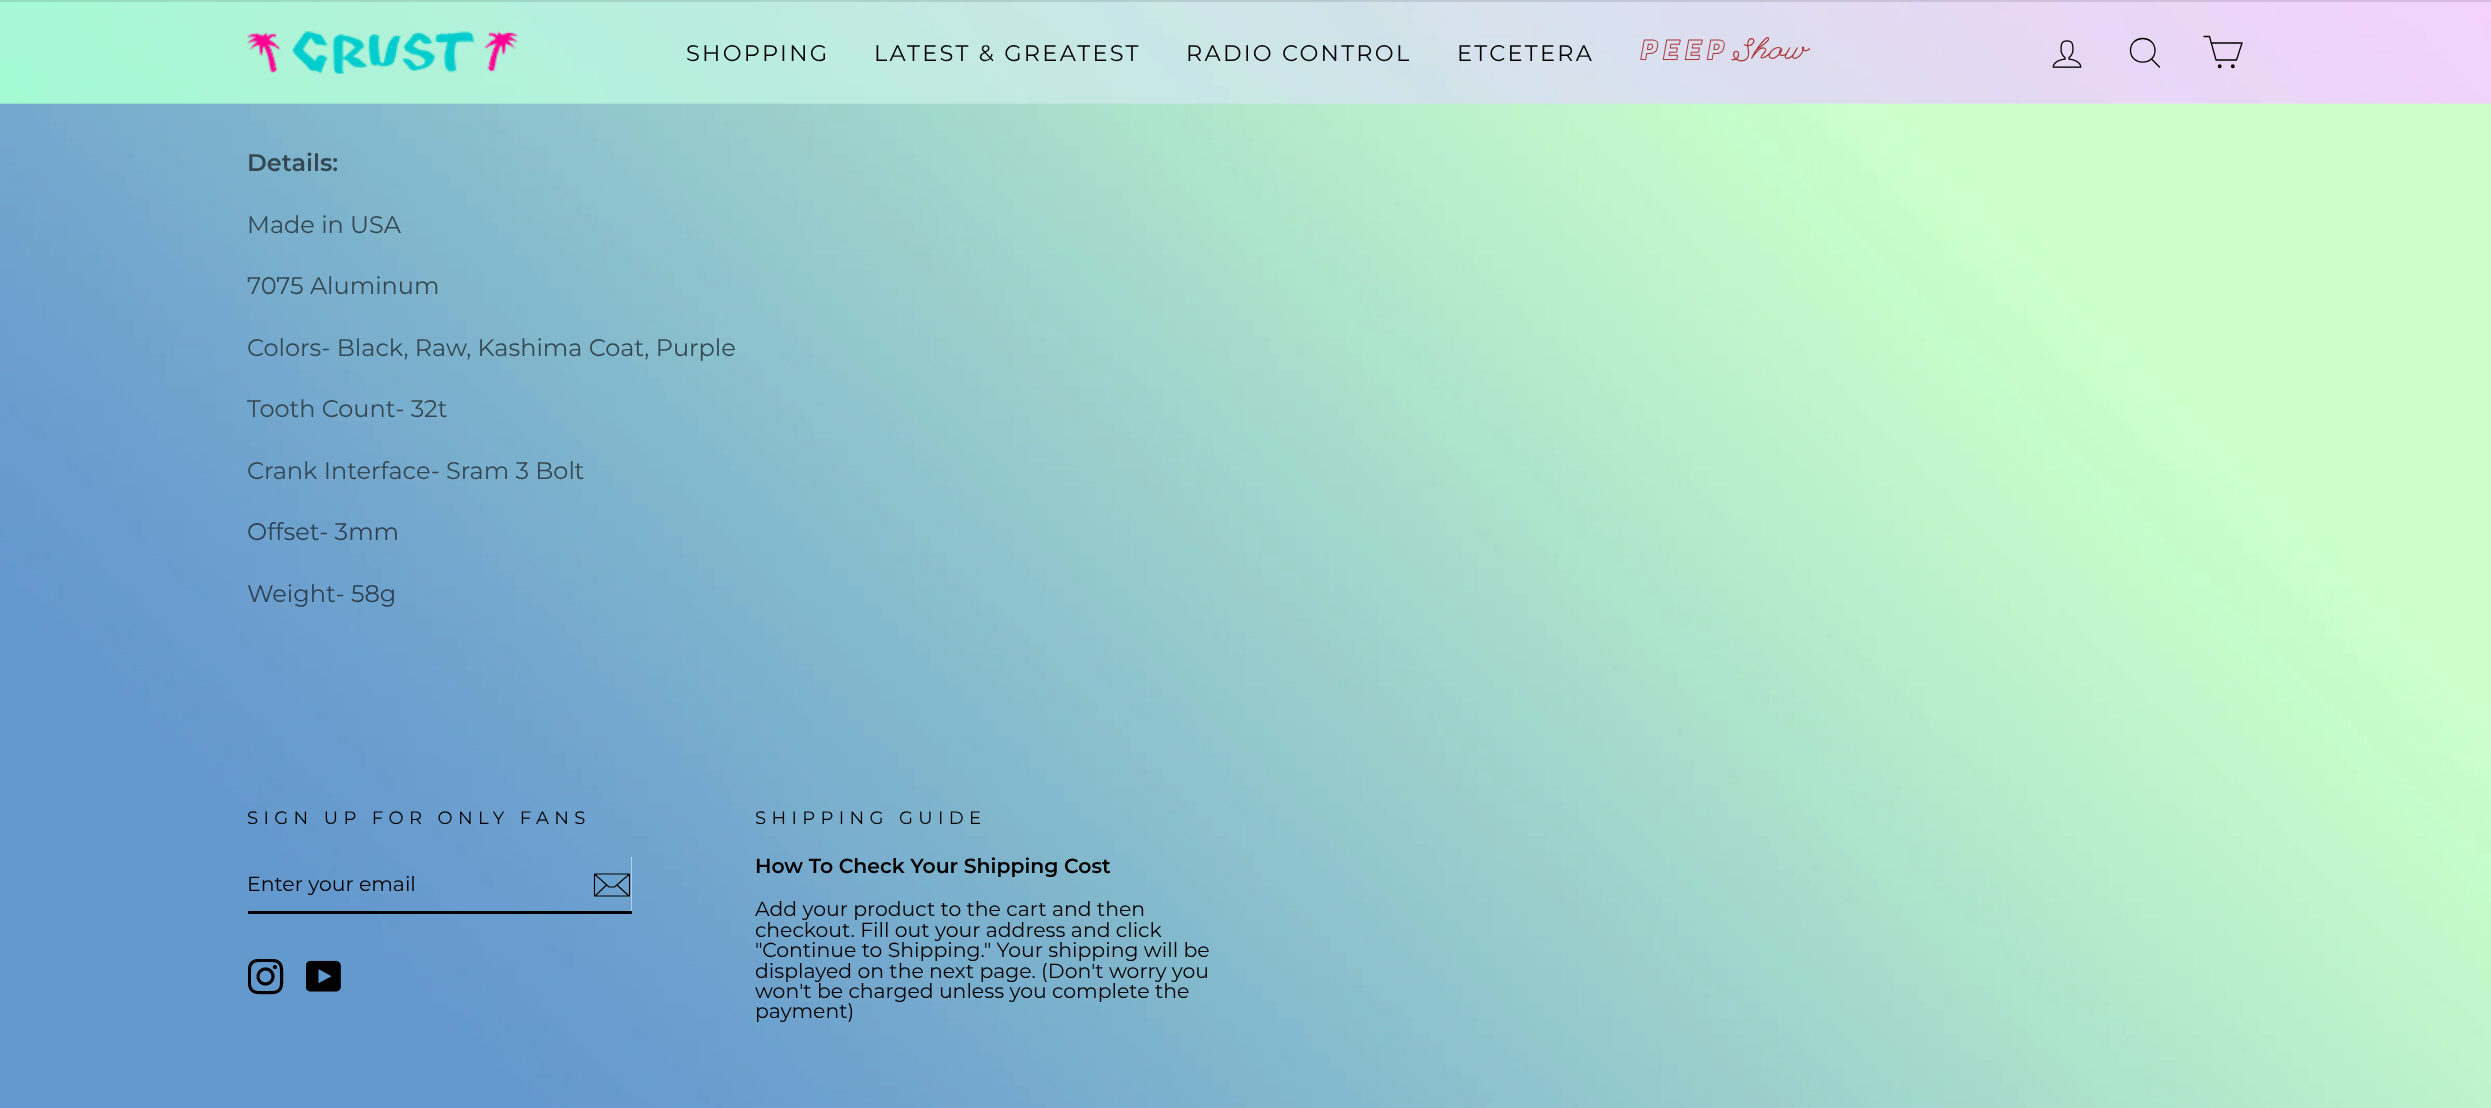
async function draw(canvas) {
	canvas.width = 2491;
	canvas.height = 1108;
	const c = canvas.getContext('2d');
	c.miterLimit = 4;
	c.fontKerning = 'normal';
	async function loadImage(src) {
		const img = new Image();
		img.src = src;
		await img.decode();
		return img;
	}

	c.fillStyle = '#fff';
	c.fillRect(0, 0, 2491, 1108);
	c.drawImage(await loadImage('img1.png'), 0, 102, 2491, 617);
	c.drawImage(await loadImage('img2.png'), 0, 0, 2491, 104);
	c.fillStyle = '#0000001a';
	c.fillRect(0, 0, 2491, 2);
	c.drawImage(await loadImage('img3.png'), 247, 31, 271, 43);
	c.letterSpacing = '2.25px';
	c.font = '22.5px Montserrat';
	c.fillStyle = '#000';
	for (const [text, x, y] of [
		['SHOPPING', 686, 61],
		['LATEST & GREATEST', 874, 61],
		['RADIO CONTROL', 1186, 61],
		['ETCETERA', 1457, 61],
	]) {
		c.fillText(text, x, y);
	}
	c.letterSpacing = '5.5px';
	c.font = '26.5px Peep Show';
	c.fillStyle = '#ad3838';
	c.fillText('PEEP', 1639, 60);
	c.letterSpacing = '0px';
	c.font = '26.5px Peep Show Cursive';
	c.fillText('Show', 1736, 60);
	c.drawImage(await loadImage('img4.png'), 2052, 40, 30, 28);
	c.beginPath();
	c.moveTo(2155, 50.5);
	c.bezierCurveTo(2155, 66, 2130.5, 66, 2130.5, 50.5);
	c.bezierCurveTo(2130.5, 34.5, 2155, 34.5, 2155, 50.5);
	c.closePath();
	c.moveTo(2159.5, 67);
	c.lineTo(2151.5, 59);
	c.strokeStyle = '#000';
	c.lineWidth = 1.3;
	c.lineCap = 'round';
	c.lineJoin = 'round';
	c.stroke();
	c.beginPath();
	c.moveTo(2211, 43);
	c.lineTo(2242, 43);
	c.lineTo(2236.5, 60);
	c.lineTo(2216, 60);
	c.lineTo(2209.5, 36.5);
	c.lineTo(2204, 36.5);
	c.stroke();
	c.fillStyle = '#000';
	c.beginPath();
	c.arc(2219.7, 66.3, 1.3, 0, 2 * Math.PI);
	c.fill();
	c.stroke();
	c.beginPath();
	c.arc(2232.8, 66.3, 1.3, 0, 2 * Math.PI);
	c.fill();
	c.stroke();
	c.font = '600 24px Montserrat';
	c.fillStyle = '#334852';
	c.fillText('Details:', 247, 171);
	c.font = '24px Montserrat';
	for (const [text, x, y] of [
		['Made in USA', 247, 233],
		['7075 Aluminum', 247, 294],
		['Colors- Black, Raw, Kashima Coat, Purple', 247, 356],
		['Tooth Count- 32t', 247, 417],
		['Crank Interface- Sram 3 Bolt', 247, 479],
	]) {
		c.fillText(text, x, y);
	}
	c.fillStyle = '#2d4152';
	c.fillText('Offset- 3mm', 247, 540);
	c.fillText('Weight- 58g', 247, 602);
	c.drawImage(await loadImage('img5.png'), 0, 719, 2491, 389);
	c.letterSpacing = '5.4px';
	c.font = '18px Montserrat';
	c.fillStyle = '#000';
	c.fillText('SIGN UP FOR ONLY FANS', 247, 824);
	c.fillStyle = '#fff';
	c.fillRect(631, 857, 1, 54);
	c.drawImage(await loadImage('img6.png'), 248, 857, 384, 54);
	c.fillStyle = '#000';
	c.fillRect(248, 911, 384, 3);
	c.letterSpacing = '0px';
	c.font = '20.4px Montserrat';
	c.fillText('Enter your email', 247, 891);
	c.beginPath();
	c.moveTo(629.5, 896);
	c.lineTo(594.5, 896);
	c.lineTo(594.5, 874);
	c.lineTo(629.5, 874);
	c.closePath();
	c.moveTo(594.5, 874);
	c.lineTo(609, 887);
	c.lineTo(614.5, 887);
	c.lineTo(629.5, 874);
	c.moveTo(606.5, 885);
	c.lineTo(595, 896);
	c.moveTo(629, 896);
	c.lineTo(617, 885);
	c.lineWidth = 1.1;
	c.stroke();
	c.drawImage(await loadImage('img7.png'), 248, 959, 36, 36);
	c.drawImage(await loadImage('img8.png'), 306, 960, 35, 32);
	c.letterSpacing = '5.4px';
	c.font = '18px Montserrat';
	c.fillText('SHIPPING GUIDE', 755, 824);
	c.letterSpacing = '0px';
	c.font = '600 20.4px Montserrat';
	c.fillText('How To Check Your Shipping Cost', 755, 873);
	c.font = '20.4px Montserrat';
	for (const [text, x, y] of [
		['Add your product to the cart and then', 755, 916],
		['checkout. Fill out your address and click', 755, 937],
		['"Continue to Shipping." Your shipping will be', 755, 957],
		['displayed on the next page. (Don\'t worry you', 755, 978],
		['won\'t be charged unless you complete the', 755, 998],
		['payment)', 755, 1018],
	]) {
		c.fillText(text, x, y);
	}
}

draw(document.querySelector('canvas'));
